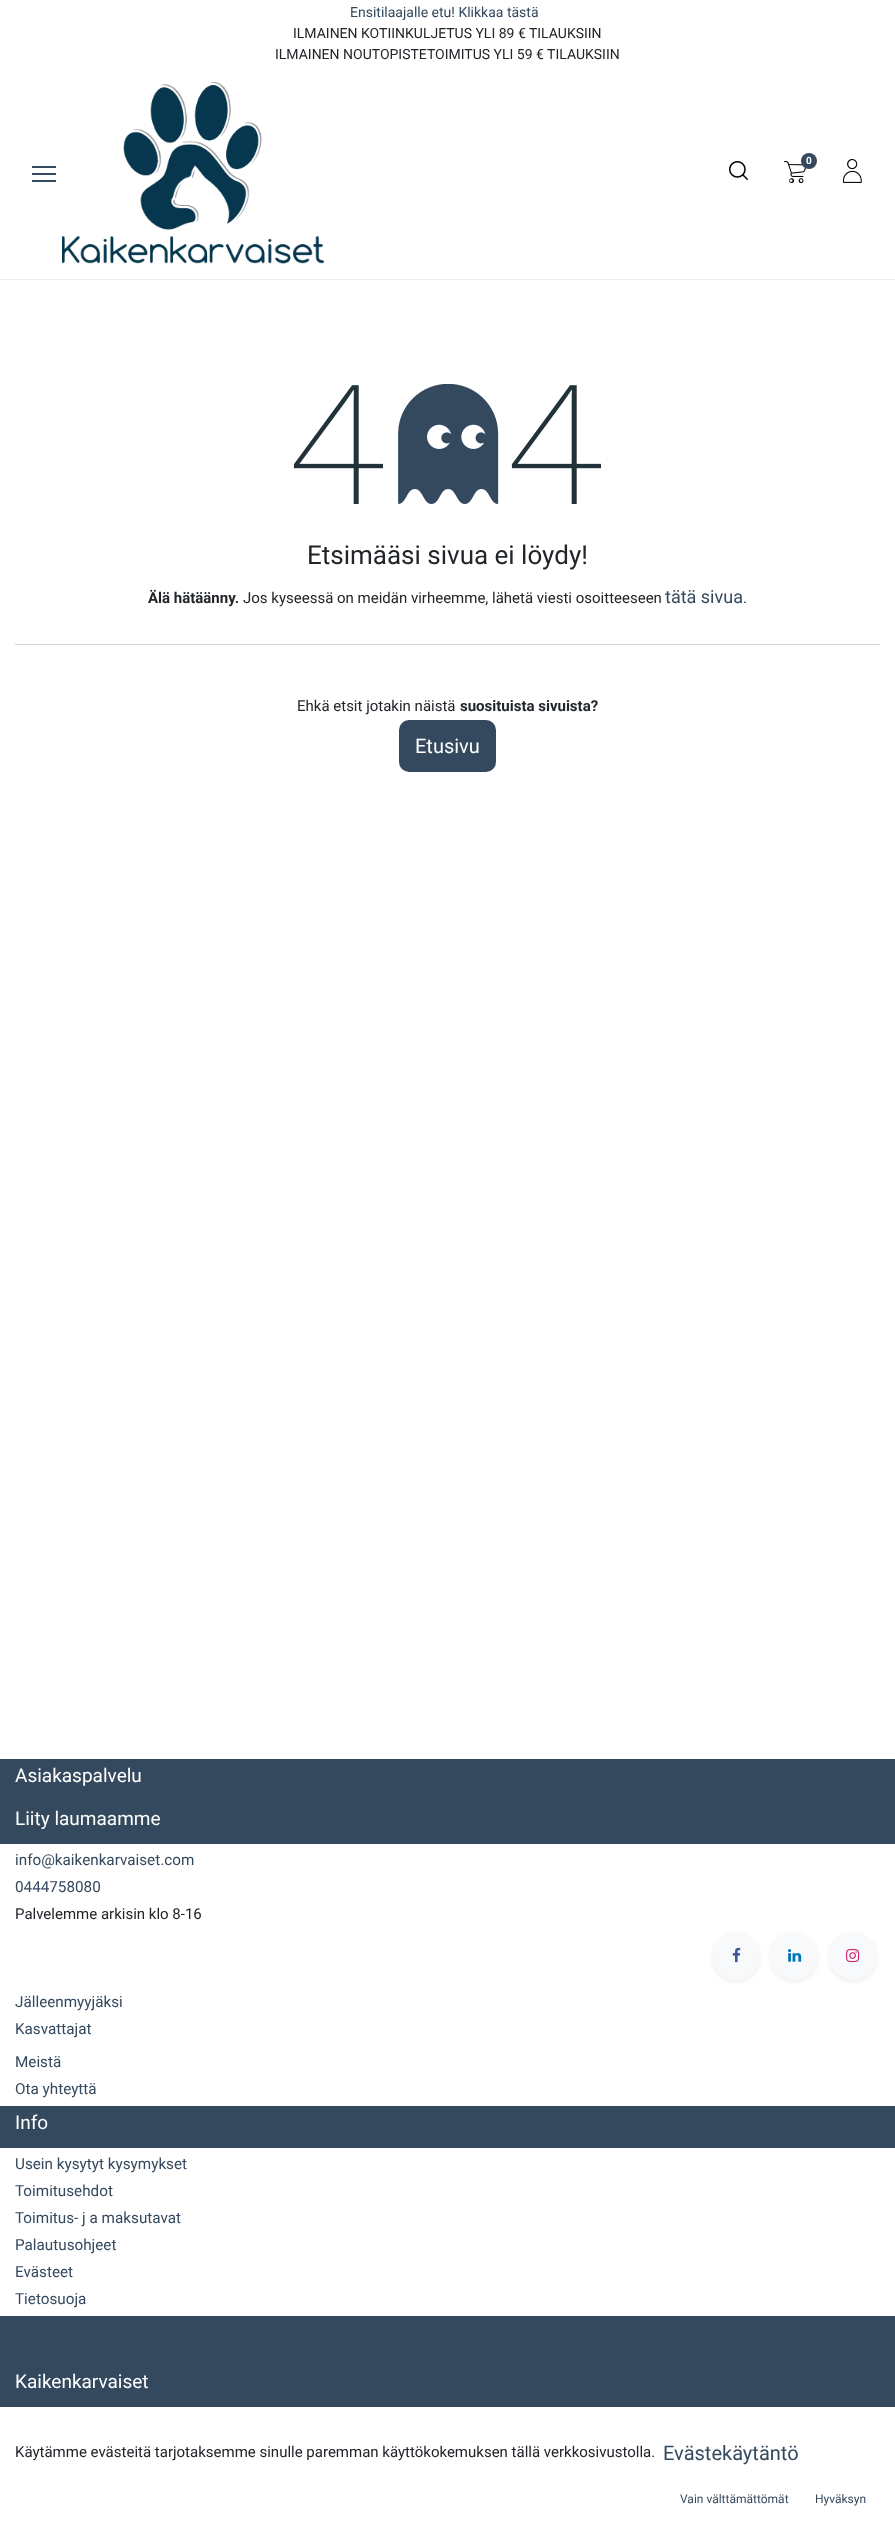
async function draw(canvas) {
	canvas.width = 895;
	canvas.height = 2529;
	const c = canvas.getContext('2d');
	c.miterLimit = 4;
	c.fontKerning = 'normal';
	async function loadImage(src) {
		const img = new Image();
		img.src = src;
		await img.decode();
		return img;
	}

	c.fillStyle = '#fff';
	c.fillRect(0, 0, 895, 2529);
	c.font = '14px Roboto';
	c.fillStyle = '#34495e';
	c.fillText('Ensitilaajalle etu! Klikkaa tästä', 350, 17);
	c.fillStyle = '#212529';
	c.fillText('ILMAINEN KOTIINKULJETUS YLI 89 € TILAUKSIIN', 293, 38);
	c.fillText('ILMAINEN NOUTOPISTETOIMITUS YLI 59 € TILAUKSIIN', 275, 59);
	for (const [x, y, w, h, color] of [
		[32, 166, 24, 2, '#34495e'],
		[32, 173, 24, 2, '#34495e'],
		[32, 180, 24, 2, '#34495e'],
	]) {
		c.fillStyle = color;
		c.fillRect(x, y, w, h);
	}
	c.drawImage(await loadImage('img1.png'), 62, 82, 262, 182);
	c.drawImage(await loadImage('img2.png'), 729, 161, 19, 19);
	c.drawImage(await loadImage('img3.png'), 784, 161, 22, 22);
	c.beginPath();
	c.arc(809, 161, 8, 0, 2 * Math.PI);
	c.fill();
	c.font = 'bold 10px Roboto';
	c.fillStyle = '#fff';
	c.fillText('0', 806, 164);
	c.drawImage(await loadImage('img4.png'), 843, 159, 19, 24);
	c.fillStyle = '#ededed';
	c.fillRect(0, 279, 895, 1);
	c.drawImage(await loadImage('img5.png'), 293, 384, 308, 120);
	c.font = '26px Roboto';
	c.fillStyle = '#212529';
	c.fillText('Etsimääsi sivua ei löydy!', 307, 564);
	c.font = 'bold 15px Roboto';
	c.fillText('Älä hätäänny.', 148, 603);
	c.font = '15px Roboto';
	c.fillText('Jos kyseessä on meidän virheemme, lähetä viesti osoitteeseen', 243, 603);
	c.font = '18px Roboto';
	c.fillStyle = '#34495e';
	c.fillText('tätä sivua', 665, 603);
	c.font = '15px Roboto';
	c.fillStyle = '#212529';
	c.fillText('.', 743, 603);
	c.fillStyle = '#ced4da';
	c.fillRect(15, 644, 865, 1);
	c.fillStyle = '#212529';
	c.fillText('Ehkä etsit jotakin näistä', 297, 711);
	c.font = 'bold 15px Roboto';
	c.fillText('suosituista sivuista?', 460, 711);
	c.fillStyle = '#34495e';
	c.beginPath();
	c.roundRect(399, 720, 97, 52, 10);
	c.fill();
	c.font = '20px Roboto';
	c.fillStyle = '#fff';
	c.fillText('Etusivu', 415, 753);
	c.fillStyle = '#34495e';
	c.fillRect(0, 1759, 895, 85);
	c.font = '19px Roboto';
	c.fillStyle = '#fff';
	c.fillText('Asiakaspalvelu', 15, 1782);
	c.fillText('Liity laumaamme', 15, 1825);
	c.font = '15.25px Roboto';
	c.fillStyle = '#34495e';
	c.fillText('info@kaikenkarvaiset.com', 15, 1865);
	c.fillText('0444758080', 15, 1892);
	c.font = '15px Roboto';
	c.fillStyle = '#212529';
	c.fillText('Palvelemme arkisin klo 8-16', 15, 1919);
	c.fillStyle = '#00000012';
	c.filter = 'blur(2px)';
	c.beginPath();
	c.roundRect(712, 1934, 48, 48, 24);
	c.fill();
	c.filter = 'none';
	c.fillStyle = '#f8f9fa';
	c.beginPath();
	c.arc(736, 1956, 24, 0, 2 * Math.PI);
	c.fill();
	c.drawImage(await loadImage('img6.png'), 732, 1947, 9, 16);
	c.fillStyle = '#00000012';
	c.filter = 'blur(2px)';
	c.beginPath();
	c.roundRect(770, 1934, 48, 48, 24);
	c.fill();
	c.filter = 'none';
	c.fillStyle = '#f8f9fa';
	c.beginPath();
	c.arc(794, 1956, 24, 0, 2 * Math.PI);
	c.fill();
	c.drawImage(await loadImage('img7.png'), 788, 1949, 14, 13);
	c.fillStyle = '#00000012';
	c.filter = 'blur(2px)';
	c.beginPath();
	c.roundRect(829, 1934, 48, 48, 24);
	c.fill();
	c.filter = 'none';
	c.fillStyle = '#f8f9fa';
	c.beginPath();
	c.arc(853, 1956, 24, 0, 2 * Math.PI);
	c.fill();
	c.drawImage(await loadImage('img8.png'), 846, 1948, 14, 15);
	c.font = '15.25px Roboto';
	c.fillStyle = '#34495e';
	for (const [text, x, y] of [
		['Jälleenmyyjäksi ', 15, 2007],
		['Kasvattajat', 15, 2034],
		['Meistä', 15, 2067],
		['Ota yhteyttä', 15, 2094],
	]) {
		c.fillText(text, x, y);
	}
	c.fillRect(0, 2106, 895, 42);
	c.font = '19px Roboto';
	c.fillStyle = '#fff';
	c.fillText('Info', 15, 2129);
	c.font = '15.25px Roboto';
	c.fillStyle = '#34495e';
	for (const [text, x, y] of [
		['Usein kysytyt kysymykset', 15, 2169],
		['Toimitusehdot', 15, 2196],
		['Toimitus- j a maksutavat', 15, 2223],
		['Palautusohjeet', 15, 2250],
		['Evästeet', 15, 2277],
		['Tietosuoja', 15, 2304],
	]) {
		c.fillText(text, x, y);
	}
	c.fillRect(0, 2316, 895, 91);
	c.font = '19px Roboto';
	c.fillStyle = '#fff';
	c.fillText('Kaikenkarvaiset', 15, 2388);
	c.font = '15px Roboto';
	c.fillStyle = '#212529';
	c.fillText('Käytämme evästeitä tarjotaksemme sinulle paremman käyttökokemuksen tällä verkkosivustolla.', 15, 2457);
	c.font = '20px Roboto';
	c.fillStyle = '#34495e';
	c.fillText('Evästekäytäntö', 663, 2460);
	c.font = '12px Roboto';
	c.fillText('Vain välttämättömät', 680, 2503);
	c.fillText('Hyväksyn', 815, 2503);
}

draw(document.querySelector('canvas'));
